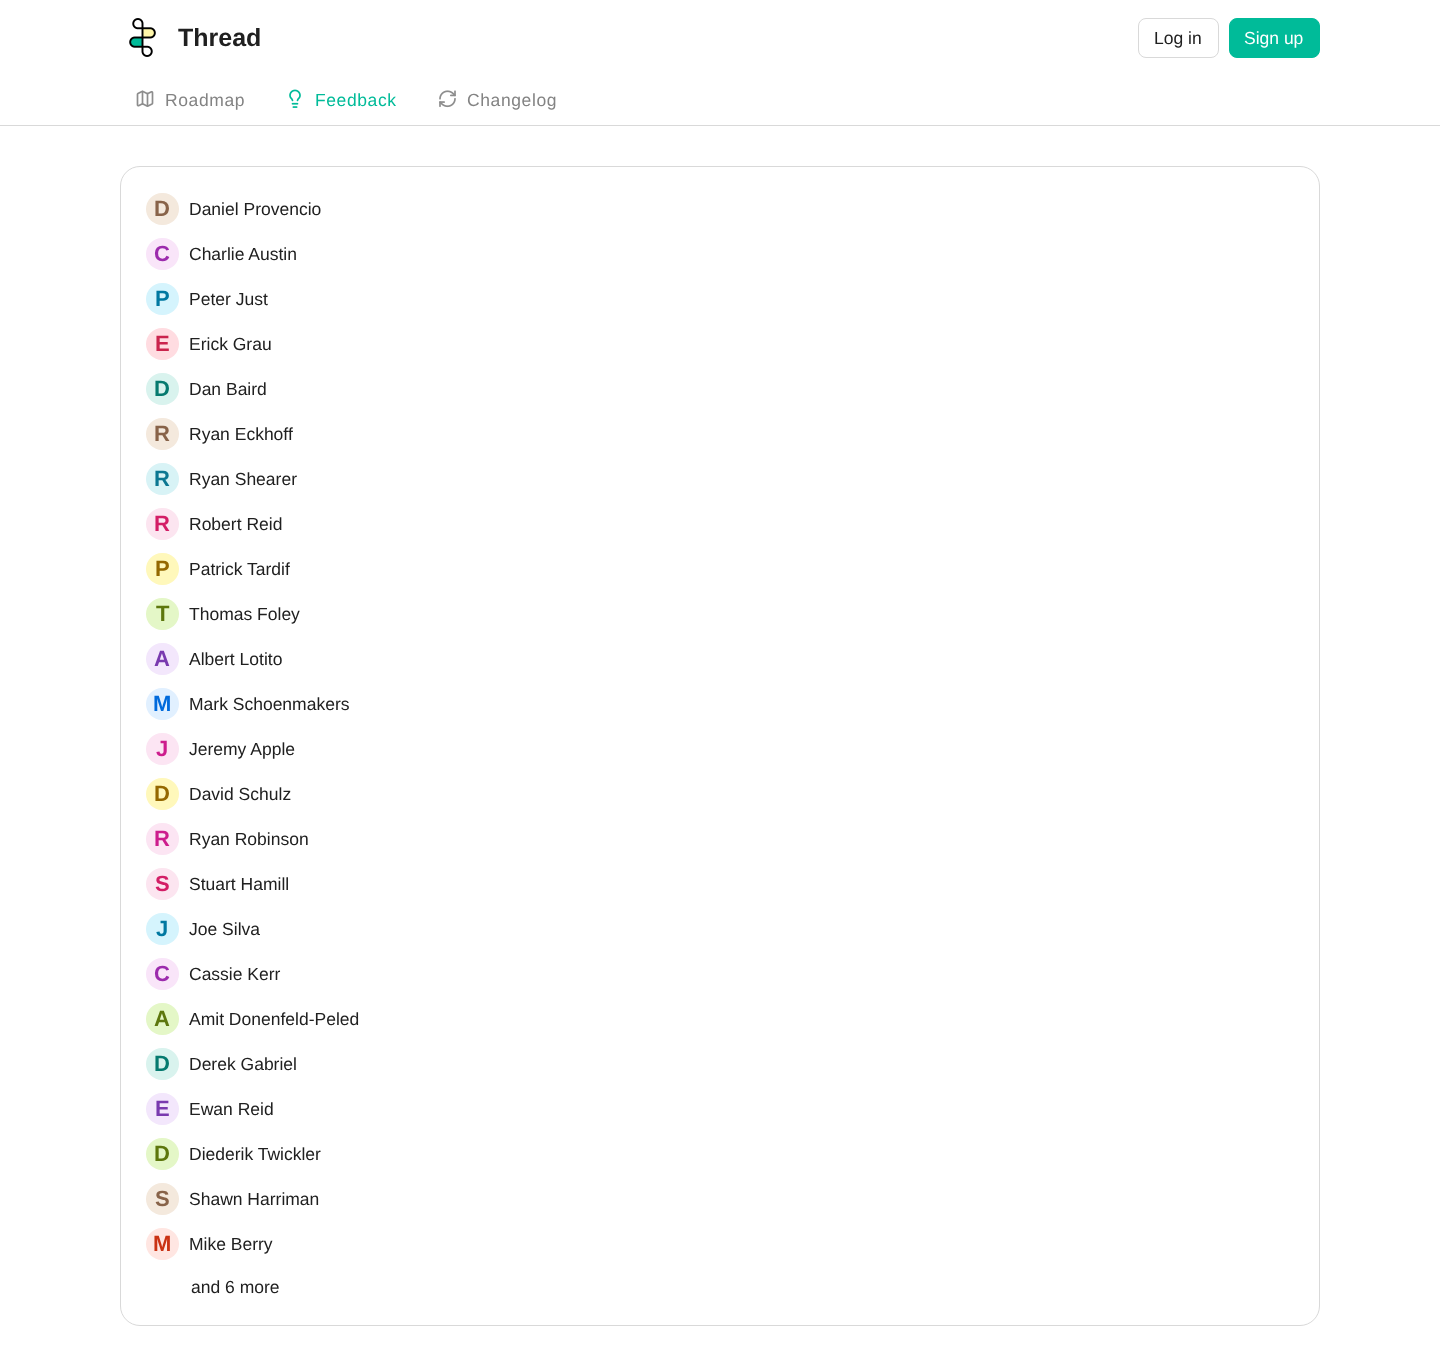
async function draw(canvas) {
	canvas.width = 1440;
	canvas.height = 1372;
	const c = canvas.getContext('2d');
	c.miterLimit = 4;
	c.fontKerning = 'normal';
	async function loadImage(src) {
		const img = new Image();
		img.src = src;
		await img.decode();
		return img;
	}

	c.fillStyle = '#fff';
	c.fillRect(0, 0, 1440, 1372);
	c.fillStyle = '#d9d9d9';
	c.fillRect(0, 125, 1440, 1);
	c.drawImage(await loadImage('img1.png'), 129, 18, 27, 39);
	c.font = 'bold 25px Liberation Sans';
	c.fillStyle = '#202020';
	c.fillText('Thread', 178, 46);
	c.beginPath();
	c.roundRect(1138.5, 18.5, 80, 39, 7.5);
	c.strokeStyle = '#d9d9d9';
	c.stroke();
	c.font = '17.5px Liberation Sans';
	c.fillText('Log in', 1154, 44);
	c.fillStyle = '#0b9';
	c.beginPath();
	c.roundRect(1229.5, 18.5, 90, 39, 7.5);
	c.fill();
	c.strokeStyle = '#0b9';
	c.stroke();
	c.fillStyle = '#fff';
	c.fillText('Sign up', 1244, 44);
	c.drawImage(await loadImage('img2.png'), 136, 90, 18, 17);
	c.letterSpacing = '0.6px';
	c.fillStyle = '#838383';
	c.fillText('Roadmap', 165, 106);
	c.drawImage(await loadImage('img3.png'), 289, 89, 12, 19);
	c.fillStyle = '#0b9';
	c.fillText('Feedback', 315, 106);
	c.drawImage(await loadImage('img4.png'), 439, 90, 17, 18);
	c.fillStyle = '#838383';
	c.fillText('Changelog', 467, 106);
	c.beginPath();
	c.roundRect(120.5, 166.5, 1199, 1159, 19.5);
	c.strokeStyle = '#d9d9d9';
	c.stroke();
	c.fillStyle = '#f4e9dd';
	c.beginPath();
	c.roundRect(146, 193, 33, 32, 16);
	c.fill();
	c.letterSpacing = '0px';
	c.font = 'bold 22px Liberation Sans';
	c.fillStyle = '#886349';
	c.fillText('D', 154, 216);
	c.font = '17.5px Liberation Sans';
	c.fillStyle = '#202020';
	c.fillText('Daniel Provencio', 189, 215);
	c.fillStyle = '#f9e5f9';
	c.beginPath();
	c.roundRect(146, 238, 33, 32, 16);
	c.fill();
	c.font = 'bold 22px Liberation Sans';
	c.fillStyle = '#9c2bad';
	c.fillText('C', 154, 261);
	c.font = '17.5px Liberation Sans';
	c.fillStyle = '#202020';
	c.fillText('Charlie Austin', 189, 260);
	c.fillStyle = '#d5f4fd';
	c.beginPath();
	c.roundRect(146, 283, 33, 32, 16);
	c.fill();
	c.font = 'bold 22px Liberation Sans';
	c.fillStyle = '#0078a1';
	c.fillText('P', 155, 306);
	c.font = '17.5px Liberation Sans';
	c.fillStyle = '#202020';
	c.fillText('Peter Just', 189, 305);
	c.fillStyle = '#ffdce1';
	c.beginPath();
	c.roundRect(146, 328, 33, 32, 16);
	c.fill();
	c.font = 'bold 22px Liberation Sans';
	c.fillStyle = '#ca244d';
	c.fillText('E', 155, 351);
	c.font = '17.5px Liberation Sans';
	c.fillStyle = '#202020';
	c.fillText('Erick Grau', 189, 350);
	c.fillStyle = '#d9f3ee';
	c.beginPath();
	c.roundRect(146, 373, 33, 32, 16);
	c.fill();
	c.font = 'bold 22px Liberation Sans';
	c.fillStyle = '#067a6f';
	c.fillText('D', 154, 396);
	c.font = '17.5px Liberation Sans';
	c.fillStyle = '#202020';
	c.fillText('Dan Baird', 189, 395);
	c.fillStyle = '#f4e9dd';
	c.beginPath();
	c.roundRect(146, 418, 33, 32, 16);
	c.fill();
	c.font = 'bold 22px Liberation Sans';
	c.fillStyle = '#886349';
	c.fillText('R', 154, 441);
	c.font = '17.5px Liberation Sans';
	c.fillStyle = '#202020';
	c.fillText('Ryan Eckhoff', 189, 440);
	c.fillStyle = '#d8f3f6';
	c.beginPath();
	c.roundRect(146, 463, 33, 32, 16);
	c.fill();
	c.font = 'bold 22px Liberation Sans';
	c.fillStyle = '#0c7792';
	c.fillText('R', 154, 486);
	c.font = '17.5px Liberation Sans';
	c.fillStyle = '#202020';
	c.fillText('Ryan Shearer', 189, 485);
	c.fillStyle = '#fce5f0';
	c.beginPath();
	c.roundRect(146, 508, 33, 32, 16);
	c.fill();
	c.font = 'bold 22px Liberation Sans';
	c.fillStyle = '#d31e66';
	c.fillText('R', 154, 531);
	c.font = '17.5px Liberation Sans';
	c.fillStyle = '#202020';
	c.fillText('Robert Reid', 189, 530);
	c.fillStyle = '#fff8bb';
	c.beginPath();
	c.roundRect(146, 553, 33, 32, 16);
	c.fill();
	c.font = 'bold 22px Liberation Sans';
	c.fillStyle = '#946800';
	c.fillText('P', 155, 576);
	c.font = '17.5px Liberation Sans';
	c.fillStyle = '#202020';
	c.fillText('Patrick Tardif', 189, 575);
	c.fillStyle = '#e4f7c7';
	c.beginPath();
	c.roundRect(146, 598, 33, 32, 16);
	c.fill();
	c.font = 'bold 22px Liberation Sans';
	c.fillStyle = '#5d770d';
	c.fillText('T', 156, 621);
	c.font = '17.5px Liberation Sans';
	c.fillStyle = '#202020';
	c.fillText('Thomas Foley', 189, 620);
	c.fillStyle = '#f3e7fc';
	c.beginPath();
	c.roundRect(146, 643, 33, 32, 16);
	c.fill();
	c.font = 'bold 22px Liberation Sans';
	c.fillStyle = '#793aaf';
	c.fillText('A', 154, 666);
	c.font = '17.5px Liberation Sans';
	c.fillStyle = '#202020';
	c.fillText('Albert Lotito', 189, 665);
	c.fillStyle = '#e1f0ff';
	c.beginPath();
	c.roundRect(146, 688, 33, 32, 16);
	c.fill();
	c.font = 'bold 22px Liberation Sans';
	c.fillStyle = '#006adc';
	c.fillText('M', 153, 711);
	c.font = '17.5px Liberation Sans';
	c.fillStyle = '#202020';
	c.fillText('Mark Schoenmakers', 189, 710);
	c.fillStyle = '#fce5f3';
	c.beginPath();
	c.roundRect(146, 733, 33, 32, 16);
	c.fill();
	c.font = 'bold 22px Liberation Sans';
	c.fillStyle = '#cd1d8d';
	c.fillText('J', 156, 756);
	c.font = '17.5px Liberation Sans';
	c.fillStyle = '#202020';
	c.fillText('Jeremy Apple', 189, 755);
	c.fillStyle = '#fff8bb';
	c.beginPath();
	c.roundRect(146, 778, 33, 32, 16);
	c.fill();
	c.font = 'bold 22px Liberation Sans';
	c.fillStyle = '#946800';
	c.fillText('D', 154, 801);
	c.font = '17.5px Liberation Sans';
	c.fillStyle = '#202020';
	c.fillText('David Schulz', 189, 800);
	c.fillStyle = '#fce5f3';
	c.beginPath();
	c.roundRect(146, 823, 33, 32, 16);
	c.fill();
	c.font = 'bold 22px Liberation Sans';
	c.fillStyle = '#cd1d8d';
	c.fillText('R', 154, 846);
	c.font = '17.5px Liberation Sans';
	c.fillStyle = '#202020';
	c.fillText('Ryan Robinson', 189, 845);
	c.fillStyle = '#fce5f0';
	c.beginPath();
	c.roundRect(146, 868, 33, 32, 16);
	c.fill();
	c.font = 'bold 22px Liberation Sans';
	c.fillStyle = '#d31e66';
	c.fillText('S', 155, 891);
	c.font = '17.5px Liberation Sans';
	c.fillStyle = '#202020';
	c.fillText('Stuart Hamill', 189, 890);
	c.fillStyle = '#d5f4fd';
	c.beginPath();
	c.roundRect(146, 913, 33, 32, 16);
	c.fill();
	c.font = 'bold 22px Liberation Sans';
	c.fillStyle = '#0078a1';
	c.fillText('J', 156, 936);
	c.font = '17.5px Liberation Sans';
	c.fillStyle = '#202020';
	c.fillText('Joe Silva', 189, 935);
	c.fillStyle = '#f9e5f9';
	c.beginPath();
	c.roundRect(146, 958, 33, 32, 16);
	c.fill();
	c.font = 'bold 22px Liberation Sans';
	c.fillStyle = '#9c2bad';
	c.fillText('C', 154, 981);
	c.font = '17.5px Liberation Sans';
	c.fillStyle = '#202020';
	c.fillText('Cassie Kerr', 189, 980);
	c.fillStyle = '#e4f7c7';
	c.beginPath();
	c.roundRect(146, 1003, 33, 32, 16);
	c.fill();
	c.font = 'bold 22px Liberation Sans';
	c.fillStyle = '#5d770d';
	c.fillText('A', 154, 1026);
	c.font = '17.5px Liberation Sans';
	c.fillStyle = '#202020';
	c.fillText('Amit Donenfeld-Peled', 189, 1025);
	c.fillStyle = '#d9f3ee';
	c.beginPath();
	c.roundRect(146, 1048, 33, 32, 16);
	c.fill();
	c.font = 'bold 22px Liberation Sans';
	c.fillStyle = '#067a6f';
	c.fillText('D', 154, 1071);
	c.font = '17.5px Liberation Sans';
	c.fillStyle = '#202020';
	c.fillText('Derek Gabriel', 189, 1070);
	c.fillStyle = '#f3e7fc';
	c.beginPath();
	c.roundRect(146, 1093, 33, 32, 16);
	c.fill();
	c.font = 'bold 22px Liberation Sans';
	c.fillStyle = '#793aaf';
	c.fillText('E', 155, 1116);
	c.font = '17.5px Liberation Sans';
	c.fillStyle = '#202020';
	c.fillText('Ewan Reid', 189, 1115);
	c.fillStyle = '#e4f7c7';
	c.beginPath();
	c.roundRect(146, 1138, 33, 32, 16);
	c.fill();
	c.font = 'bold 22px Liberation Sans';
	c.fillStyle = '#5d770d';
	c.fillText('D', 154, 1161);
	c.font = '17.5px Liberation Sans';
	c.fillStyle = '#202020';
	c.fillText('Diederik Twickler', 189, 1160);
	c.fillStyle = '#f4e9dd';
	c.beginPath();
	c.roundRect(146, 1183, 33, 32, 16);
	c.fill();
	c.font = 'bold 22px Liberation Sans';
	c.fillStyle = '#886349';
	c.fillText('S', 155, 1206);
	c.font = '17.5px Liberation Sans';
	c.fillStyle = '#202020';
	c.fillText('Shawn Harriman', 189, 1205);
	c.fillStyle = '#ffe6e2';
	c.beginPath();
	c.roundRect(146, 1228, 33, 32, 16);
	c.fill();
	c.font = 'bold 22px Liberation Sans';
	c.fillStyle = '#ca3214';
	c.fillText('M', 153, 1251);
	c.font = '17.5px Liberation Sans';
	c.fillStyle = '#202020';
	c.fillText('Mike Berry', 189, 1250);
	c.fillText('and 6 more', 191, 1293);
}

draw(document.querySelector('canvas'));
